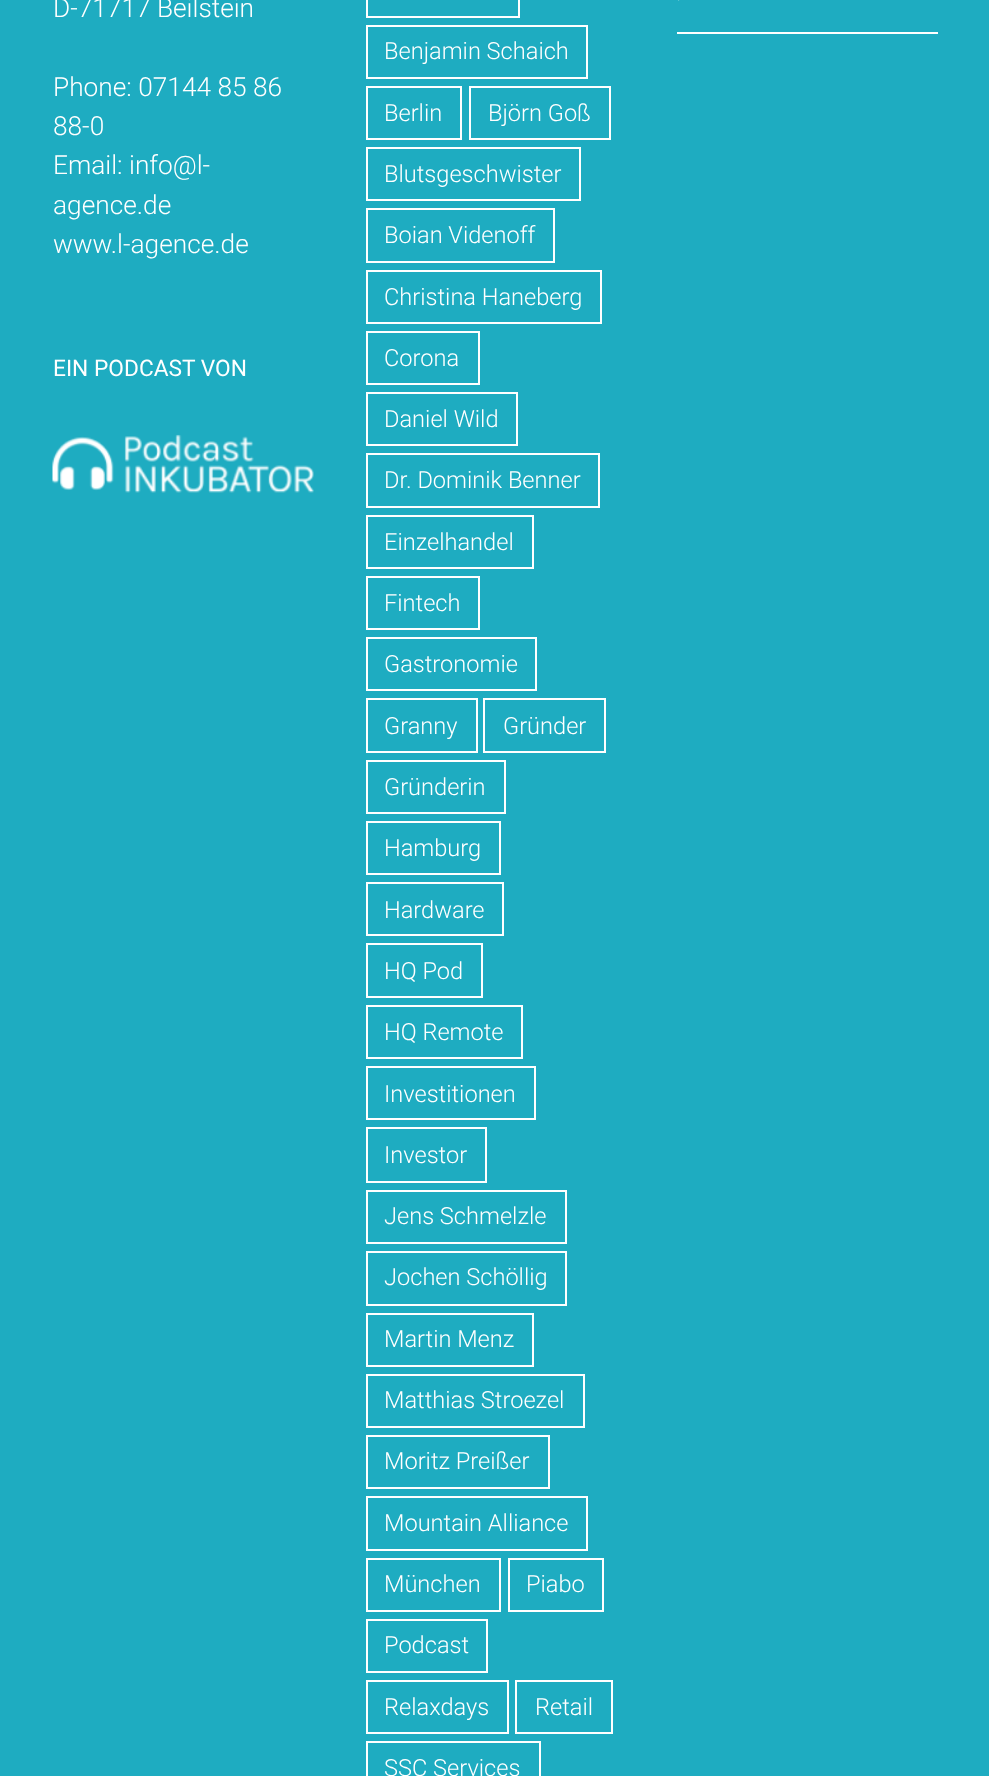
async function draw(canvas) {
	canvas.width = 989;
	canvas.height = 1776;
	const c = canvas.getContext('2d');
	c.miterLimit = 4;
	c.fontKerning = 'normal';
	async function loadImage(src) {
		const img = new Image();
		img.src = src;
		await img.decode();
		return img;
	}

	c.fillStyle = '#1eacc1';
	c.fillRect(0, 0, 989, 1776);
	c.font = '300 26.25px Roboto';
	c.fillStyle = '#fff';
	for (const [text, x, y] of [
		['D-71717 Beilstein', 53, 17],
		['Phone: 07144 85 86', 53, 96],
		['88-0', 53, 135],
		['Email: info@l-', 53, 174],
		['agence.de', 53, 214],
		['www.l-agence.de', 53, 253],
	]) {
		c.fillText(text, x, y);
	}
	c.font = '22.75px Roboto';
	c.fillText('EIN PODCAST VON', 53, 376);
	c.drawImage(await loadImage('img1.png'), 52, 434, 262, 59);
	c.fillRect(677, 32, 261, 2);
	c.drawImage(await loadImage('img2.png'), 678, 0, 2, 1);
	c.strokeStyle = '#fff';
	c.lineWidth = 2;
	c.strokeRect(367, -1, 152, 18);
	c.strokeRect(367, 26, 220, 52);
	c.font = '300 23.6px Roboto';
	c.fillText('Benjamin Schaich', 384, 59);
	c.strokeRect(367, 87, 94, 52);
	c.fillText('Berlin', 384, 121);
	c.strokeRect(470, 87, 140, 52);
	c.fillText('Björn Goß', 488, 121);
	c.strokeRect(367, 148, 213, 52);
	c.fillText('Blutsgeschwister', 384, 182);
	c.strokeRect(367, 209, 187, 53);
	c.fillText('Boian Videnoff', 384, 243);
	c.strokeRect(367, 271, 234, 52);
	c.fillText('Christina Haneberg', 384, 305);
	c.strokeRect(367, 332, 112, 52);
	c.fillText('Corona', 384, 366);
	c.strokeRect(367, 393, 150, 52);
	c.fillText('Daniel Wild', 384, 427);
	c.strokeRect(367, 454, 232, 53);
	c.fillText('Dr. Dominik Benner', 384, 488);
	c.strokeRect(367, 516, 166, 52);
	c.fillText('Einzelhandel', 384, 550);
	c.strokeRect(367, 577, 112, 52);
	c.fillText('Fintech', 384, 611);
	c.strokeRect(367, 638, 169, 52);
	c.fillText('Gastronomie', 384, 672);
	c.strokeRect(367, 699, 110, 53);
	c.fillText('Granny', 384, 734);
	c.strokeRect(484, 699, 121, 53);
	c.fillText('Gründer', 503, 734);
	c.strokeRect(367, 761, 138, 52);
	c.fillText('Gründerin', 384, 795);
	c.strokeRect(367, 822, 133, 52);
	c.fillText('Hamburg', 384, 856);
	c.strokeRect(367, 883, 136, 52);
	c.fillText('Hardware', 384, 918);
	c.strokeRect(367, 944, 115, 53);
	c.fillText('HQ Pod', 384, 979);
	c.strokeRect(367, 1006, 155, 52);
	c.fillText('HQ Remote', 384, 1040);
	c.strokeRect(367, 1067, 168, 52);
	c.fillText('Investitionen', 384, 1102);
	c.strokeRect(367, 1128, 119, 54);
	c.fillText('Investor', 384, 1163);
	c.strokeRect(367, 1191, 199, 52);
	c.fillText('Jens Schmelzle', 384, 1224);
	c.strokeRect(367, 1252, 199, 53);
	c.fillText('Jochen Schöllig', 384, 1285);
	c.strokeRect(367, 1314, 166, 52);
	c.fillText('Martin Menz', 384, 1347);
	c.strokeRect(367, 1375, 217, 52);
	c.fillText('Matthias Stroezel', 384, 1408);
	c.strokeRect(367, 1436, 182, 52);
	c.fillText('Moritz Preißer', 384, 1469);
	c.strokeRect(367, 1497, 220, 53);
	c.fillText('Mountain Alliance', 384, 1531);
	c.strokeRect(367, 1559, 133, 52);
	c.fillText('München', 384, 1592);
	c.strokeRect(509, 1559, 94, 52);
	c.fillText('Piabo', 526, 1592);
	c.strokeRect(367, 1620, 120, 52);
	c.fillText('Podcast', 384, 1653);
	c.strokeRect(367, 1681, 141, 52);
	c.fillText('Relaxdays', 384, 1715);
	c.strokeRect(516, 1681, 96, 52);
	c.fillText('Retail', 535, 1715);
	c.strokeRect(367, 1742, 173, 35);
	c.fillText('SSC Services', 384, 1776);
}

draw(document.querySelector('canvas'));
